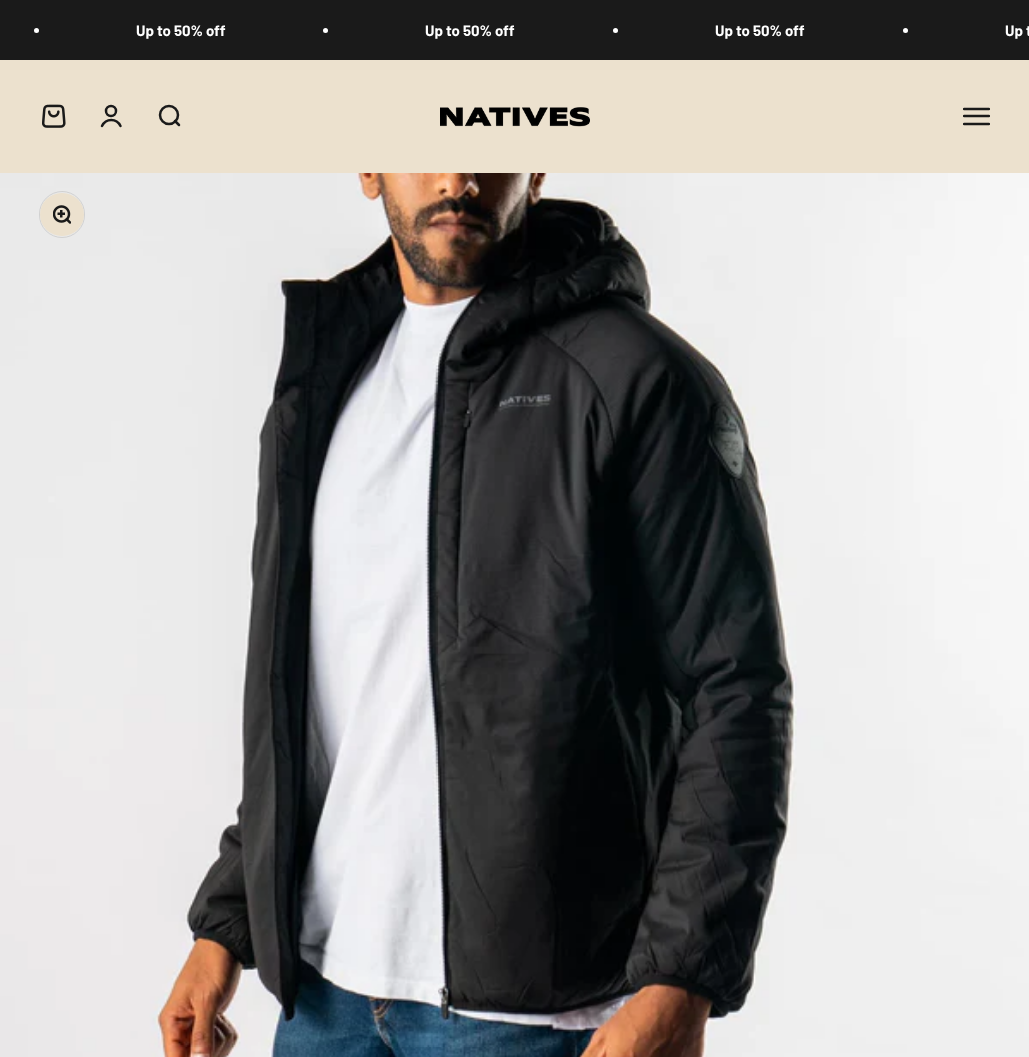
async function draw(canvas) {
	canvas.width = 1029;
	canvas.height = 1057;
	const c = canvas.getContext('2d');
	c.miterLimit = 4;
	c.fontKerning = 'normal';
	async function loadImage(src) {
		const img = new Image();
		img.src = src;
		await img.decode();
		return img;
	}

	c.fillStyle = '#ece1ce';
	c.fillRect(0, 0, 1029, 1057);
	c.fillStyle = '#1a1a1a';
	c.fillRect(0, 0, 1029, 60);
	c.fillStyle = '#fff';
	c.beginPath();
	c.arc(36.5, 30.5, 2.5, 0, 2 * Math.PI);
	c.fill();
	c.font = 'bold 15px Barlow';
	c.fillText('Up to 50% off', 136, 36);
	c.beginPath();
	c.arc(325.5, 30.5, 2.5, 0, 2 * Math.PI);
	c.fill();
	c.fillText('Up to 50% off', 425, 36);
	c.beginPath();
	c.arc(615.5, 30.5, 2.5, 0, 2 * Math.PI);
	c.fill();
	c.fillText('Up to 50% off', 715, 36);
	c.beginPath();
	c.arc(905.5, 30.5, 2.5, 0, 2 * Math.PI);
	c.fill();
	c.fillText('Up t', 1005, 36);
	c.drawImage(await loadImage('img1.png'), 42, 104, 24, 24);
	c.beginPath();
	c.arc(111, 111, 5, 0, 2 * Math.PI);
	c.strokeStyle = '#1a1a1a';
	c.lineWidth = 2.5;
	c.stroke();
	c.beginPath();
	c.moveTo(102, 126);
	c.bezierCurveTo(106, 118, 116.5, 118, 120.5, 126);
	c.lineCap = 'round';
	c.stroke();
	c.beginPath();
	c.arc(169, 115, 9, 0, 2 * Math.PI);
	c.stroke();
	c.beginPath();
	c.moveTo(175, 121);
	c.lineTo(179, 125);
	c.lineJoin = 'round';
	c.stroke();
	c.drawImage(await loadImage('img2.png'), 440, 107, 150, 20);
	c.save();
	c.beginPath();
	c.rect(963, 103, 27, 27);
	c.clip();
	c.beginPath();
	c.moveTo(964, 109);
	c.lineTo(989, 109);
	c.moveTo(964, 116);
	c.lineTo(989, 116);
	c.moveTo(964, 124);
	c.lineTo(989, 124);
	c.lineJoin = 'miter';
	c.stroke();
	c.restore();
	c.drawImage(await loadImage('img3.png'), 0, 173, 1029, 884);
	c.beginPath();
	c.roundRect(39.5, 191.5, 45, 46, 22.5);
	c.strokeStyle = '#d1d1d1';
	c.lineWidth = 1;
	c.lineJoin = 'miter';
	c.stroke();
	c.fillStyle = '#ece1ce';
	c.beginPath();
	c.roundRect(40, 193, 44, 43, 21.5);
	c.fill();
	c.drawImage(await loadImage('img4.png'), 53, 205, 18, 19);
}

draw(document.querySelector('canvas'));
